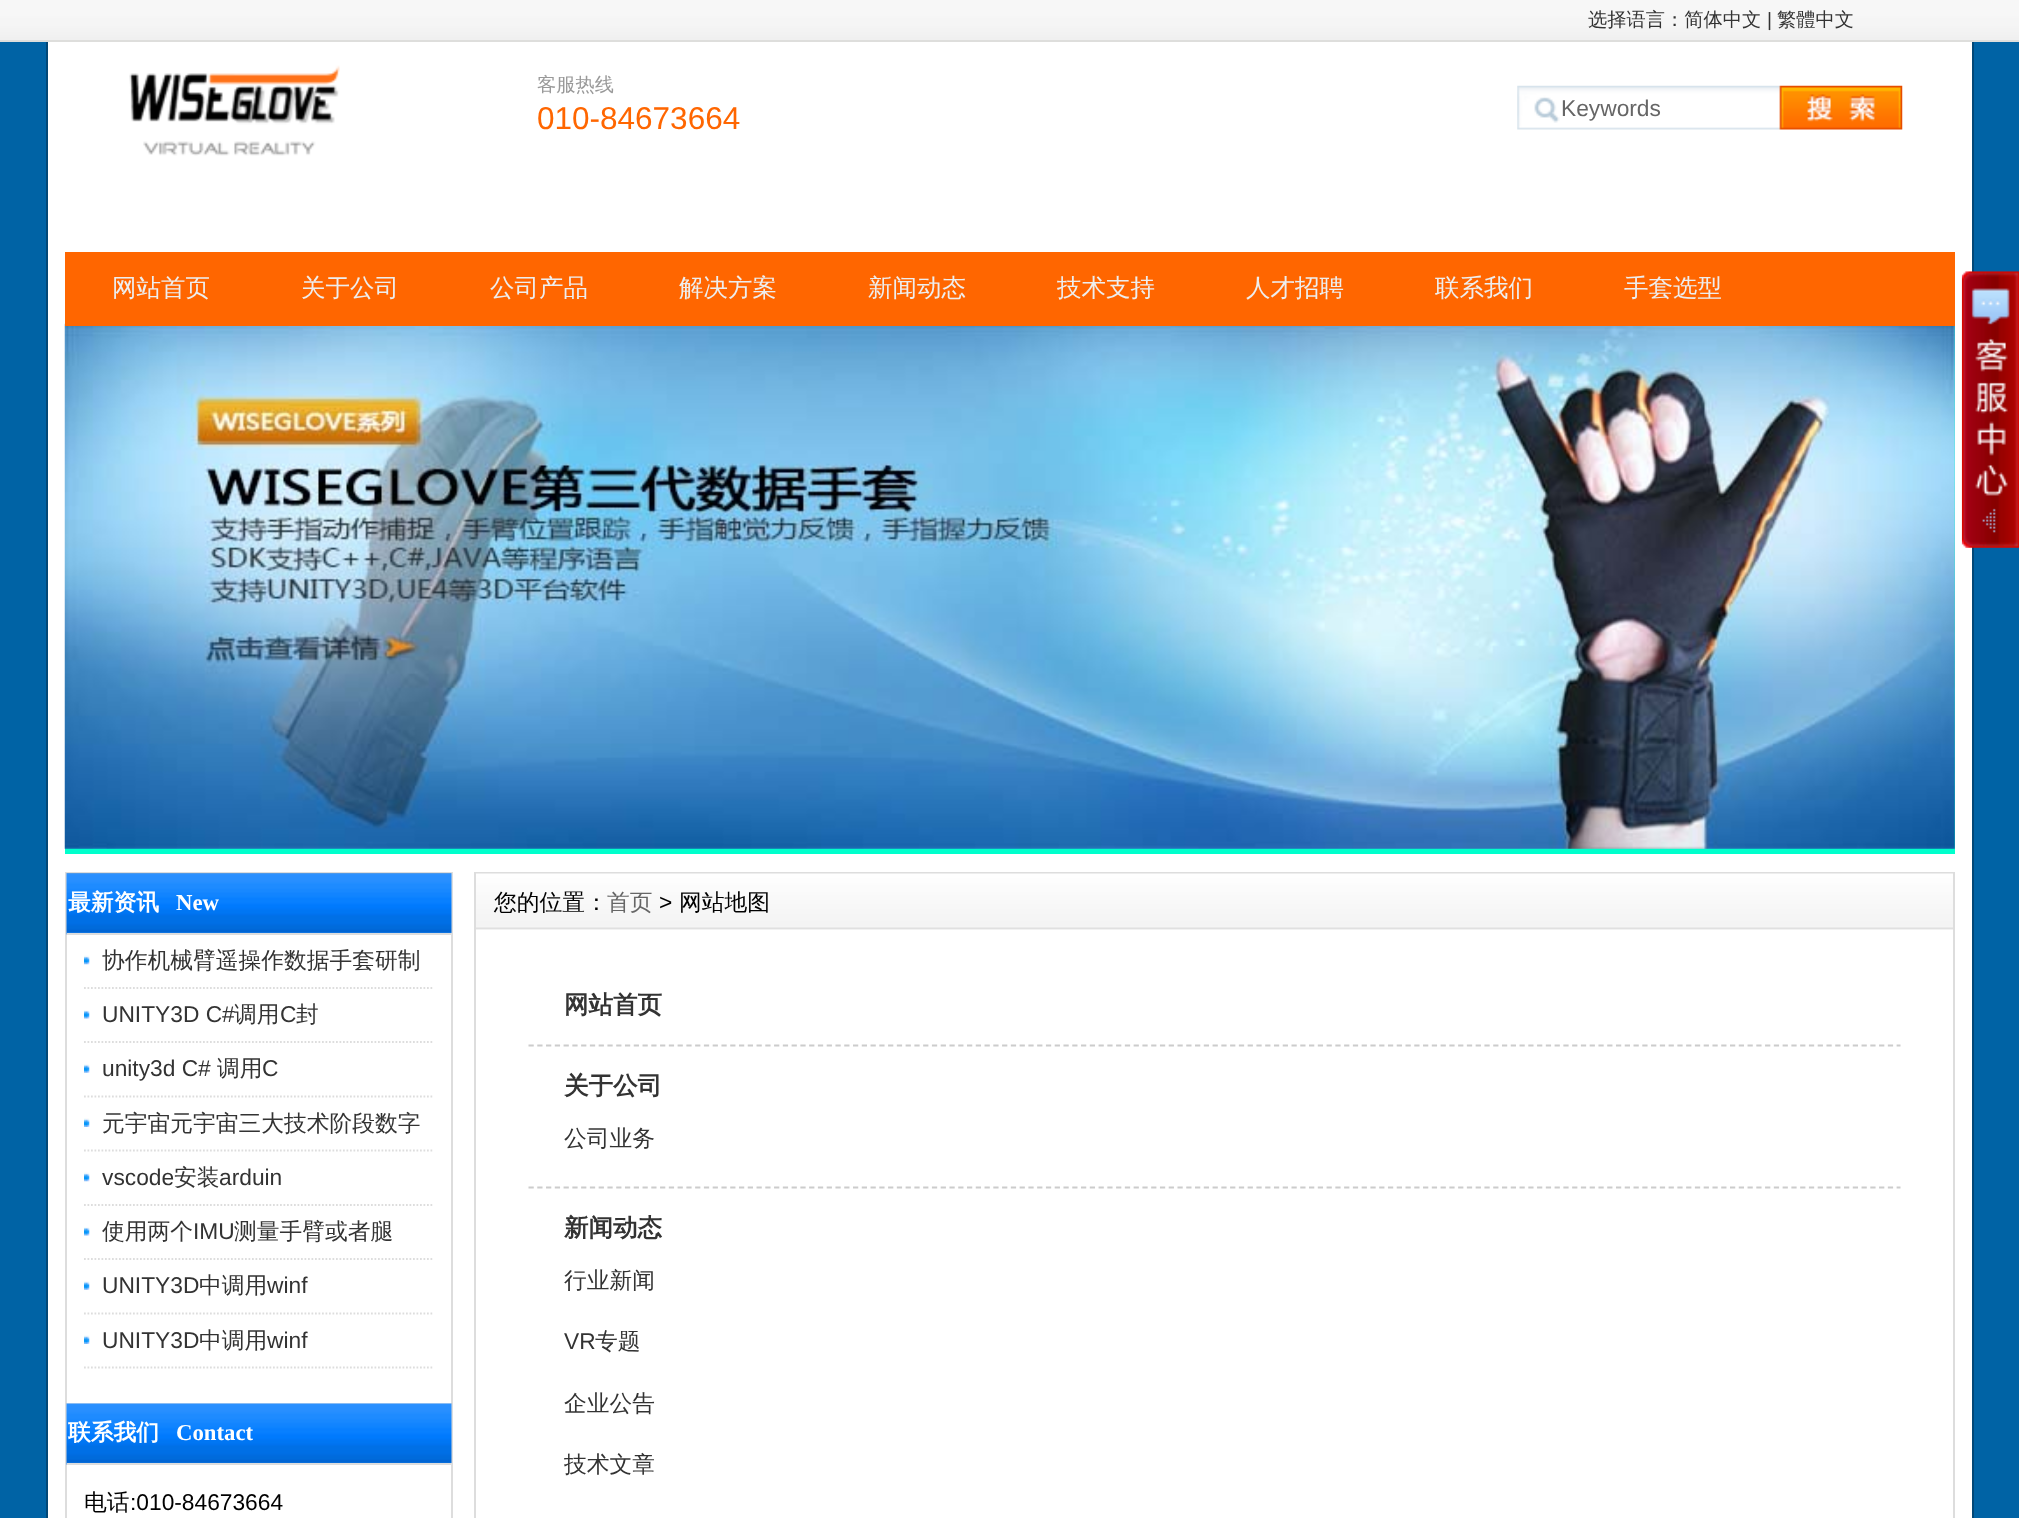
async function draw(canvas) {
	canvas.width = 2019;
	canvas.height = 1518;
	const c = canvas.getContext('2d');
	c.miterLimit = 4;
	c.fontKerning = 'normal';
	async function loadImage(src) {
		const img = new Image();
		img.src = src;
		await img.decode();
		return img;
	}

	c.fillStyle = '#0063a5';
	c.fillRect(0, 0, 2019, 1518);
	c.drawImage(await loadImage('img1.png'), 0, 0, 2019, 40);
	c.fillStyle = '#dededc';
	c.fillRect(0, 40, 2019, 2);
	c.font = '500 19.25px WenQuanYi Zen Hei';
	c.fillStyle = '#333';
	c.fillText('选择语言：简体中文', 1588, 26);
	c.font = '19.25px Liberation Sans';
	c.fillText('|', 1767, 26);
	c.font = '500 19.25px WenQuanYi Zen Hei';
	c.fillText('繁體中文', 1777, 26);
	for (const [x, y, w, h, color] of [
		[48, 42, 1924, 1476, '#fff'],
		[1972, 42, 2, 1476, '#024877'],
		[46, 42, 2, 1476, '#024877'],
	]) {
		c.fillStyle = color;
		c.fillRect(x, y, w, h);
	}
	c.drawImage(await loadImage('img2.png'), 129, 65, 211, 91);
	c.fillStyle = '#999';
	c.fillText('客服热线', 537, 91);
	c.font = '31.5px Liberation Sans';
	c.fillStyle = '#f60';
	c.fillText('010-84673664', 537, 129);
	c.drawImage(await loadImage('img3.png'), 1517, 85, 386, 45);
	c.font = '22.75px Liberation Sans';
	c.fillStyle = '#666';
	c.fillText('Keywords', 1561, 116);
	c.fillStyle = '#0fc';
	c.fillRect(65, 326, 1890, 528);
	c.drawImage(await loadImage('img4.png'), 64, 323, 1891, 526);
	c.fillStyle = '#f60';
	c.fillRect(65, 252, 1890, 74);
	c.font = '500 24.5px WenQuanYi Zen Hei';
	c.fillStyle = '#eee';
	for (const [text, x, y] of [
		['网站首页', 112, 296],
		['关于公司', 301, 296],
		['公司产品', 490, 296],
		['解决方案', 679, 296],
		['新闻动态', 868, 296],
		['技术支持', 1057, 296],
		['人才招聘', 1246, 296],
		['联系我们', 1435, 296],
		['手套选型', 1624, 296],
	]) {
		c.fillText(text, x, y);
	}
	c.strokeStyle = '#ddd';
	c.lineWidth = 2;
	c.strokeRect(66, 873, 386, 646);
	c.drawImage(await loadImage('img5.png'), 66, 873, 386, 62);
	c.fillStyle = '#ddd';
	c.fillRect(67, 933, 385, 2);
	c.font = 'bold 22.75px WenQuanYi Zen Hei';
	c.fillStyle = '#fff';
	c.fillText('最新资讯', 68, 910);
	c.font = 'bold 22.75px Liberation Serif';
	c.fillText('New', 176, 910);
	c.drawImage(await loadImage('img6.png'), 84, 955, 6, 10);
	c.beginPath();
	c.moveTo(84, 988);
	c.lineTo(434, 988);
	c.lineWidth = 1.8;
	c.setLineDash([1.75, 1.75]);
	c.stroke();
	c.font = '500 22.75px WenQuanYi Zen Hei';
	c.fillStyle = '#333';
	c.fillText('协作机械臂遥操作数据手套研制', 102, 968);
	c.drawImage(await loadImage('img7.png'), 84, 1010, 6, 9);
	c.beginPath();
	c.moveTo(84, 1042);
	c.lineTo(434, 1042);
	c.stroke();
	c.font = '22.75px Liberation Sans';
	c.fillText('UNITY3D C#', 102, 1022);
	c.font = '500 22.75px WenQuanYi Zen Hei';
	c.fillText('调用', 234, 1022);
	c.font = '22.75px Liberation Sans';
	c.fillText('C', 280, 1022);
	c.font = '500 22.75px WenQuanYi Zen Hei';
	c.fillText('封', 296, 1022);
	c.drawImage(await loadImage('img8.png'), 84, 1064, 6, 9);
	c.beginPath();
	c.moveTo(84, 1096.5);
	c.lineTo(434, 1096.5);
	c.stroke();
	c.font = '22.75px Liberation Sans';
	c.fillText('unity3d C#', 102, 1076);
	c.font = '500 22.75px WenQuanYi Zen Hei';
	c.fillText('调用', 217, 1076);
	c.font = '22.75px Liberation Sans';
	c.fillText('C', 262, 1076);
	c.drawImage(await loadImage('img9.png'), 84, 1118, 6, 9);
	c.beginPath();
	c.moveTo(84, 1150.5);
	c.lineTo(434, 1150.5);
	c.stroke();
	c.font = '500 22.75px WenQuanYi Zen Hei';
	c.fillText('元宇宙元宇宙三大技术阶段数字', 102, 1131);
	c.drawImage(await loadImage('img6.png'), 84, 1172, 6, 10);
	c.beginPath();
	c.moveTo(84, 1205);
	c.lineTo(434, 1205);
	c.stroke();
	c.font = '22.75px Liberation Sans';
	c.fillText('vscode', 102, 1185);
	c.font = '500 22.75px WenQuanYi Zen Hei';
	c.fillText('安装', 174, 1185);
	c.font = '22.75px Liberation Sans';
	c.fillText('arduin', 219, 1185);
	c.drawImage(await loadImage('img7.png'), 84, 1227, 6, 9);
	c.beginPath();
	c.moveTo(84, 1259);
	c.lineTo(434, 1259);
	c.stroke();
	c.font = '500 22.75px WenQuanYi Zen Hei';
	c.fillText('使用两个', 102, 1239);
	c.font = '22.75px Liberation Sans';
	c.fillText('IMU', 193, 1239);
	c.font = '500 22.75px WenQuanYi Zen Hei';
	c.fillText('测量手臂或者腿', 234, 1239);
	c.drawImage(await loadImage('img8.png'), 84, 1281, 6, 9);
	c.beginPath();
	c.moveTo(84, 1313.5);
	c.lineTo(434, 1313.5);
	c.stroke();
	c.font = '22.75px Liberation Sans';
	c.fillText('UNITY3D', 102, 1293);
	c.font = '500 22.75px WenQuanYi Zen Hei';
	c.fillText('中调用', 199, 1293);
	c.font = '22.75px Liberation Sans';
	c.fillText('winf', 267, 1293);
	c.drawImage(await loadImage('img9.png'), 84, 1335, 6, 9);
	c.beginPath();
	c.moveTo(84, 1367.5);
	c.lineTo(434, 1367.5);
	c.stroke();
	c.fillText('UNITY3D', 102, 1348);
	c.font = '500 22.75px WenQuanYi Zen Hei';
	c.fillText('中调用', 199, 1348);
	c.font = '22.75px Liberation Sans';
	c.fillText('winf', 267, 1348);
	c.drawImage(await loadImage('img10.png'), 66, 1403, 386, 62);
	c.fillStyle = '#ddd';
	c.fillRect(67, 1463, 385, 2);
	c.font = 'bold 22.75px WenQuanYi Zen Hei';
	c.fillStyle = '#fff';
	c.fillText('联系我们', 68, 1440);
	c.font = 'bold 22.75px Liberation Serif';
	c.fillText('Contact', 176, 1440);
	c.font = '500 22.75px WenQuanYi Zen Hei';
	c.fillStyle = '#000';
	c.fillText('电话', 84, 1510);
	c.font = '22.75px Liberation Sans';
	c.fillText(':010-84673664', 130, 1510);
	c.lineWidth = 2;
	c.setLineDash([]);
	c.strokeRect(475, 873, 1479, 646);
	c.drawImage(await loadImage('img11.png'), 476, 873, 1477, 57);
	c.font = '500 22.75px WenQuanYi Zen Hei';
	c.fillText('您的位置：', 494, 910);
	c.fillStyle = '#666';
	c.fillText('首页', 607, 910);
	c.font = '22.75px Liberation Sans';
	c.fillStyle = '#000';
	c.fillText('>', 659, 910);
	c.font = '500 22.75px WenQuanYi Zen Hei';
	c.fillText('网站地图', 679, 910);
	c.beginPath();
	c.moveTo(528.5, 1045.5);
	c.lineTo(1900.5, 1045.5);
	c.strokeStyle = '#ccc';
	c.lineWidth = 1.8;
	c.setLineDash([5.25, 3.52]);
	c.stroke();
	c.font = 'bold 24.5px WenQuanYi Zen Hei';
	c.fillStyle = '#333';
	c.fillText('网站首页', 564, 1013);
	c.beginPath();
	c.moveTo(528.5, 1187.5);
	c.lineTo(1900.5, 1187.5);
	c.stroke();
	c.fillText('关于公司', 564, 1094);
	c.font = '500 22.75px WenQuanYi Zen Hei';
	c.fillText('公司业务', 564, 1146);
	c.font = 'bold 24.5px WenQuanYi Zen Hei';
	c.fillText('新闻动态', 564, 1236);
	c.font = '500 22.75px WenQuanYi Zen Hei';
	c.fillText('行业新闻', 564, 1288);
	c.font = '22.75px Liberation Sans';
	c.fillText('VR', 564, 1349);
	c.font = '500 22.75px WenQuanYi Zen Hei';
	for (const [text, x, y] of [
		['专题', 595, 1349],
		['企业公告', 564, 1411],
		['技术文章', 564, 1472],
	]) {
		c.fillText(text, x, y);
	}
	c.drawImage(await loadImage('img12.png'), 1961, 271, 58, 277);
}

draw(document.querySelector('canvas'));
